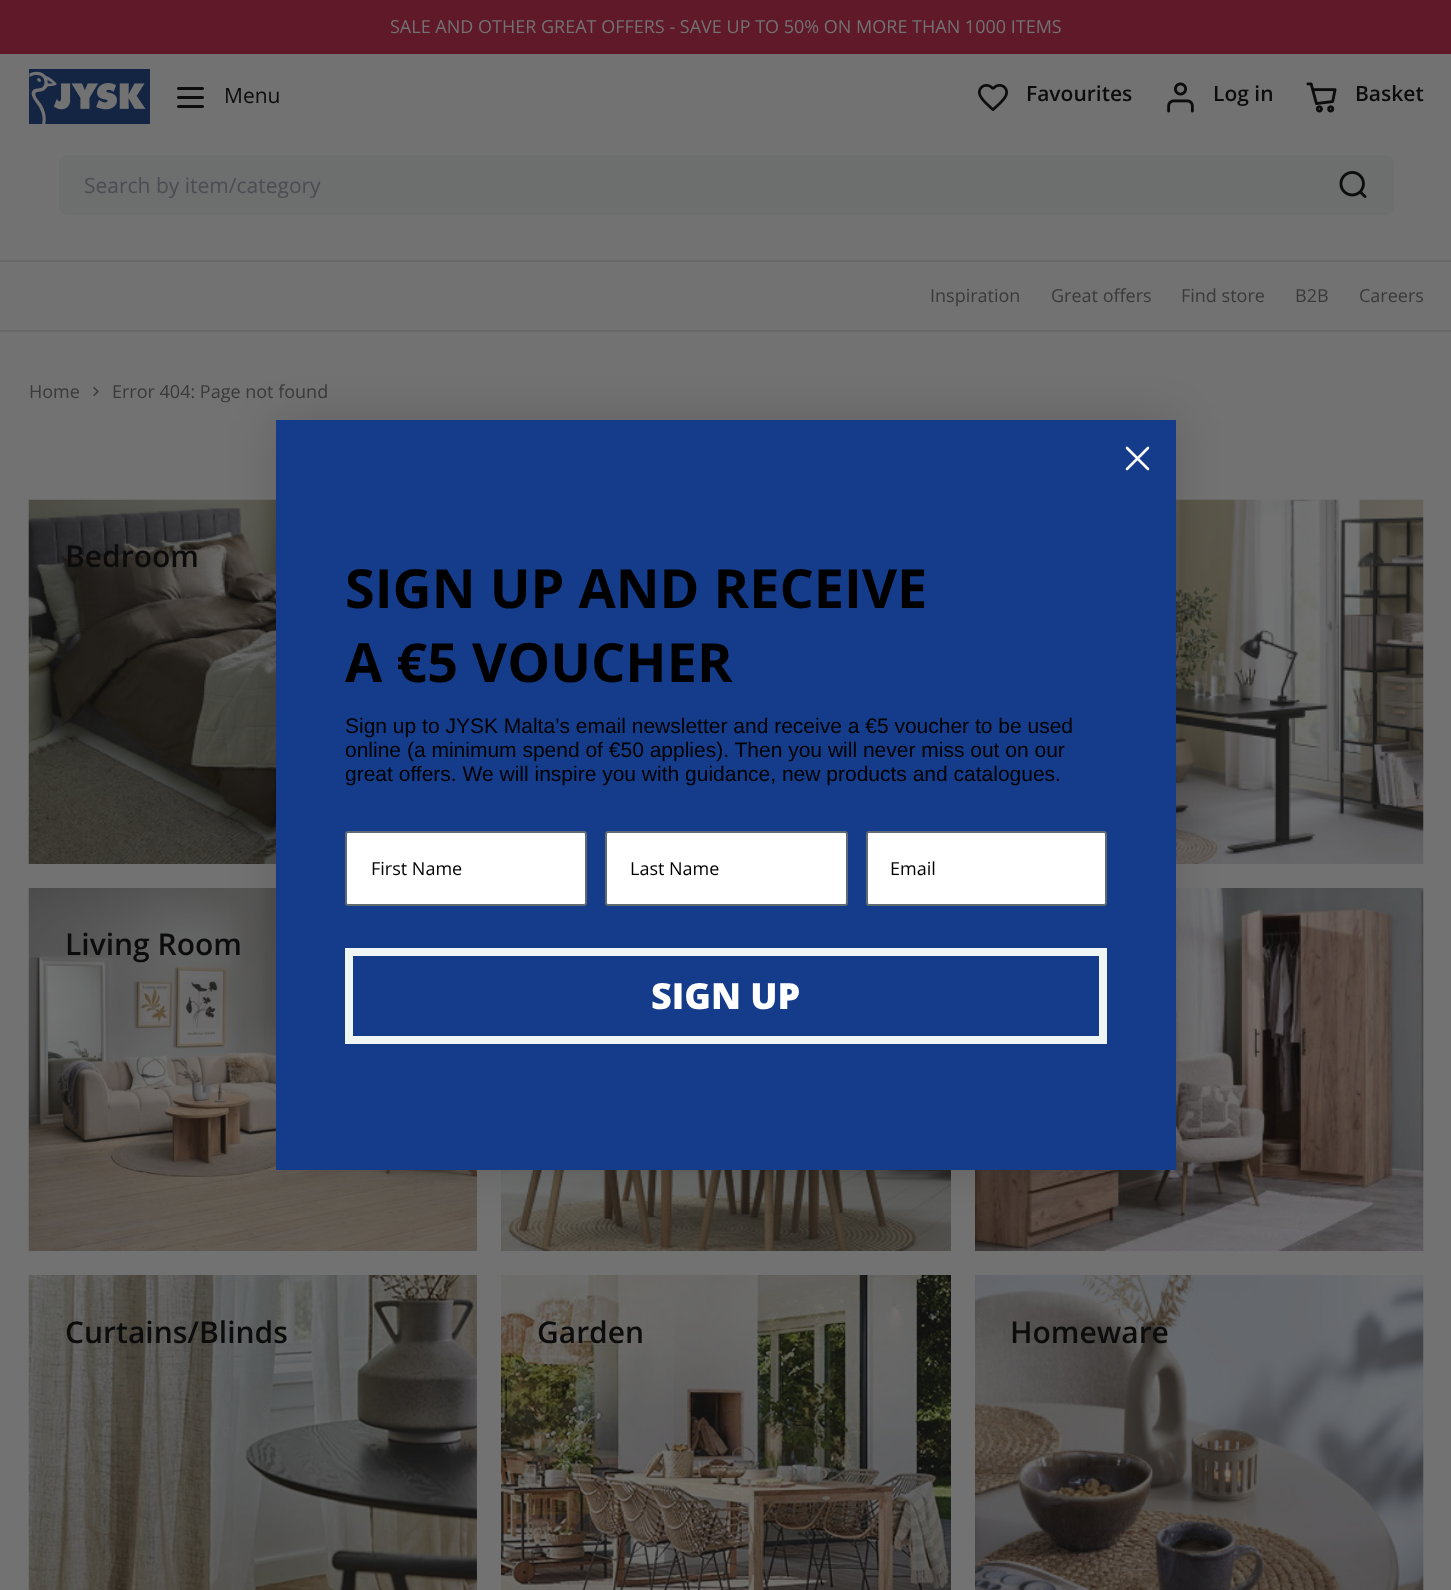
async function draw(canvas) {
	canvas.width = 1451;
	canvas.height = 1590;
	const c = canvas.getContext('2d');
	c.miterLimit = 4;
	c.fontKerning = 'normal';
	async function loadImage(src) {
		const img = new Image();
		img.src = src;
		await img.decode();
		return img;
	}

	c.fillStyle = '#727272';
	c.fillRect(0, 0, 1451, 1590);
	c.fillStyle = '#601929';
	c.fillRect(0, 0, 1451, 54);
	c.font = '18px Open Sans';
	c.fillStyle = '#727272';
	c.fillText('SALE AND OTHER GREAT OFFERS - SAVE UP TO 50% ON MORE THAN 1000 ITEMS', 390, 33);
	c.drawImage(await loadImage('img1.png'), 29, 69, 121, 55);
	c.drawImage(await loadImage('img2.png'), 177, 87, 27, 21);
	c.font = '21px Open Sans';
	c.fillStyle = '#0c0c0c';
	c.fillText('Menu', 224, 103);
	c.drawImage(await loadImage('img3.png'), 978, 84, 30, 27);
	c.font = '600 21px Open Sans';
	c.fillText('Favourites', 1026, 101);
	c.drawImage(await loadImage('img4.png'), 1167, 82, 27, 31);
	c.fillText('Log in', 1213, 101);
	c.drawImage(await loadImage('img5.png'), 1306, 82, 31, 31);
	c.fillText('Basket', 1355, 101);
	c.fillStyle = '#6d6e6e';
	c.beginPath();
	c.roundRect(59, 155, 1335, 60, 9);
	c.fill();
	c.font = '21px Open Sans';
	c.fillStyle = '#4a4d52';
	c.fillText('Search by item/category', 84, 193);
	c.drawImage(await loadImage('img6.png'), 1339, 171, 28, 27);
	c.fillStyle = '#68686a';
	c.fillRect(0, 260, 1451, 2);
	c.fillRect(0, 330, 1451, 2);
	c.font = '18px Open Sans';
	c.fillStyle = '#3a3a3a';
	for (const [text, x, y] of [
		['Inspiration', 930, 302],
		['Great offers', 1051, 302],
		['Find store', 1181, 302],
		['B2B', 1295, 302],
		['Careers', 1359, 302],
		['Home', 29, 398],
	]) {
		c.fillText(text, x, y);
	}
	c.drawImage(await loadImage('img7.png'), 93, 387, 6, 9);
	c.fillText('Error 404: Page not found', 112, 398);
	c.drawImage(await loadImage('img8.png'), 28, 499, 248, 365);
	c.font = '600 30px Open Sans';
	c.fillStyle = '#0c0c0c';
	c.fillText('Bedroom', 65, 567);
	c.drawImage(await loadImage('img9.png'), 1176, 499, 248, 365);
	c.drawImage(await loadImage('img10.png'), 28, 888, 449, 363);
	c.fillText('Living Room', 65, 955);
	c.drawImage(await loadImage('img11.png'), 975, 888, 449, 363);
	c.drawImage(await loadImage('img12.png'), 501, 1170, 450, 81);
	c.drawImage(await loadImage('img13.png'), 28, 1275, 449, 315);
	c.fillText('Curtains/Blinds', 65, 1343);
	c.drawImage(await loadImage('img14.png'), 501, 1275, 450, 315);
	c.fillText('Garden', 537, 1343);
	c.drawImage(await loadImage('img15.png'), 975, 1275, 449, 315);
	c.fillText('Homeware', 1010, 1343);
	c.fillStyle = '#00000026';
	c.filter = 'blur(22.5px)';
	c.beginPath();
	c.rect(276, 420, 900, 750);
	c.fill();
	c.filter = 'none';
	c.fillStyle = '#143c8a';
	c.fillRect(276, 420, 900, 750);
	c.beginPath();
	c.moveTo(1127, 448);
	c.lineTo(1148, 469);
	c.moveTo(1127, 469);
	c.lineTo(1148, 448);
	c.closePath();
	c.strokeStyle = '#fff';
	c.lineWidth = 2.6;
	c.lineCap = 'round';
	c.lineJoin = 'round';
	c.stroke();
	c.font = 'bold 54px Open Sans';
	c.fillStyle = '#000';
	c.fillText('SIGN UP AND RECEIVE', 345, 608);
	c.fillText('A €5 VOUCHER', 345, 682);
	c.font = '21px Liberation Sans';
	for (const [text, x, y] of [
		['Sign up to JYSK Malta’s email newsletter and receive a €5 voucher to be used', 345, 733],
		['online (a minimum spend of €50 applies). Then you will never miss out on our', 345, 757],
		['great offers. We will inspire you with guidance, new products and catalogues.', 345, 781],
	]) {
		c.fillText(text, x, y);
	}
	c.fillStyle = '#fff';
	c.beginPath();
	c.roundRect(346, 832, 240, 73, 2);
	c.fill();
	c.strokeStyle = '#606a72';
	c.lineWidth = 2;
	c.lineJoin = 'miter';
	c.stroke();
	c.font = '18px Open Sans';
	c.fillStyle = '#000';
	c.fillText('First Name', 371, 875);
	c.fillStyle = '#fff';
	c.beginPath();
	c.roundRect(606, 832, 241, 73, 2);
	c.fill();
	c.stroke();
	c.fillStyle = '#000';
	c.fillText('Last Name', 630, 875);
	c.fillStyle = '#fff';
	c.beginPath();
	c.roundRect(867, 832, 239, 73, 2);
	c.fill();
	c.stroke();
	c.fillStyle = '#000';
	c.fillText('Email', 890, 875);
	c.strokeStyle = '#eff5f3';
	c.lineWidth = 8;
	c.strokeRect(349, 952, 754, 88);
	c.font = '800 36px Open Sans';
	c.fillStyle = '#fff';
	c.fillText('SIGN UP', 651, 1009);
}

draw(document.querySelector('canvas'));
